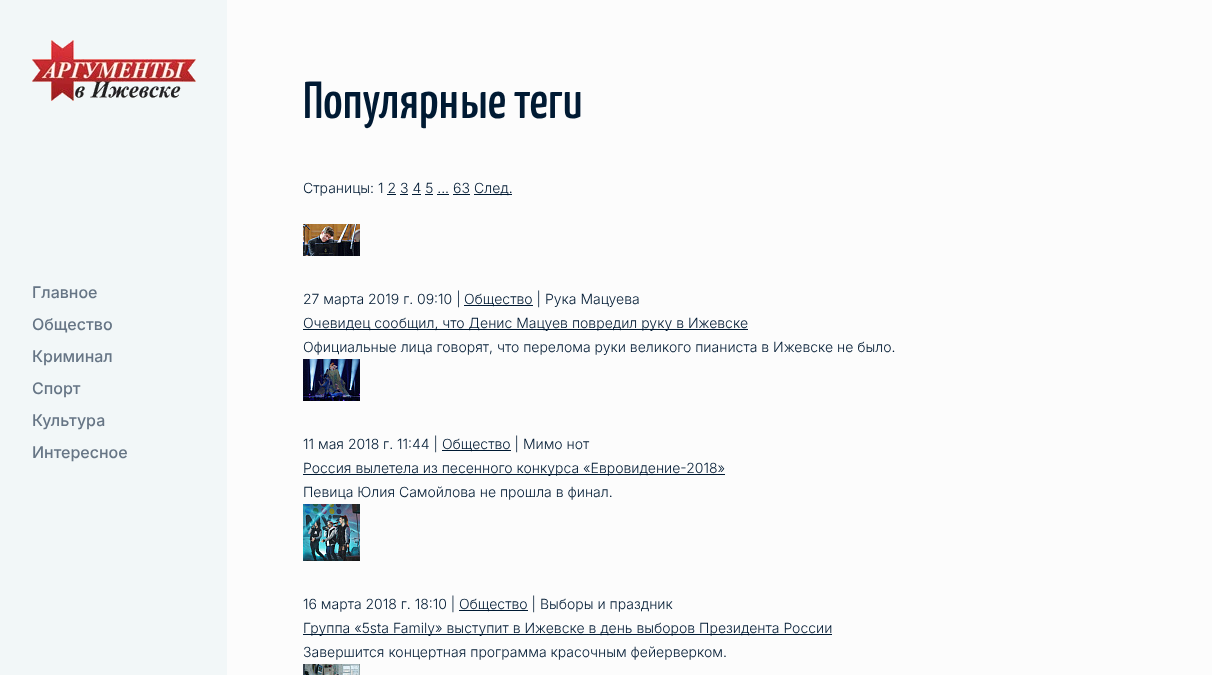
async function draw(canvas) {
	canvas.width = 1212;
	canvas.height = 675;
	const c = canvas.getContext('2d');
	c.miterLimit = 4;
	c.fontKerning = 'normal';
	async function loadImage(src) {
		const img = new Image();
		img.src = src;
		await img.decode();
		return img;
	}

	c.fillStyle = '#fcfcfc';
	c.fillRect(0, 0, 1212, 675);
	c.fillStyle = '#f2f7f8';
	c.fillRect(0, 0, 227, 675);
	c.drawImage(await loadImage('img1.png'), 32, 40, 164, 61);
	c.font = '500 16px Inter';
	c.fillStyle = '#667585';
	for (const [text, x, y] of [
		['Главное', 32, 298],
		['Общество', 32, 330],
		['Криминал', 32, 362],
		['Спорт', 32, 394],
		['Культура', 32, 426],
		['Интересное', 32, 458],
	]) {
		c.fillText(text, x, y);
	}
	c.font = '200 52px Yanone Kaffeesatz';
	c.fillStyle = '#001a33';
	c.fillText('Популярные теги', 303, 118);
	c.font = '300 14px Inter';
	c.fillText('Страницы: 1 2 3 4 5 ... 63', 303, 193);
	c.fillRect(474, 194, 38, 1);
	c.fillText('След.', 474, 193);
	for (const [x, y, w, h, color] of [
		[387, 194, 9, 1, '#001a33'],
		[400, 194, 8, 1, '#001a33'],
		[412, 194, 9, 1, '#001a33'],
		[425, 194, 8, 1, '#001a33'],
		[437, 194, 12, 1, '#001a33'],
		[453, 194, 17, 1, '#001a33'],
	]) {
		c.fillStyle = color;
		c.fillRect(x, y, w, h);
	}
	c.drawImage(await loadImage('img2.png'), 303, 224, 57, 32);
	c.fillText('27 марта 2019 г. 09:10 |', 303, 304);
	c.fillRect(464, 305, 69, 1);
	c.fillText('Общество | Рука Мацуева', 464, 304);
	c.fillRect(303, 329, 445, 1);
	c.fillText('Очевидец сообщил, что Денис Мацуев повредил руку в Ижевске', 303, 328);
	c.fillText('Официальные лица говорят, что перелома руки великого пианиста в Ижевске не было.', 303, 352);
	c.drawImage(await loadImage('img3.png'), 303, 359, 57, 42);
	c.fillText('11 мая 2018 г. 11:44 |', 303, 449);
	c.fillRect(442, 450, 69, 1);
	c.fillText('Общество | Мимо нот', 442, 449);
	c.fillRect(303, 474, 422, 1);
	c.fillText('Россия вылетела из песенного конкурса «Евровидение-2018»', 303, 473);
	c.fillText('Певица Юлия Самойлова не прошла в финал.', 303, 497);
	c.drawImage(await loadImage('img4.png'), 303, 504, 57, 57);
	c.fillText('16 марта 2018 г. 18:10 |', 303, 609);
	c.fillRect(459, 610, 69, 1);
	c.fillText('Общество | Выборы и праздник', 459, 609);
	c.fillRect(303, 634, 529, 1);
	c.fillText('Группа «5sta Family» выступит в Ижевске в день выборов Президента России', 303, 633);
	c.fillText('Завершится концертная программа красочным фейерверком.', 303, 657);
	c.drawImage(await loadImage('img5.png'), 303, 664, 57, 11);
}

draw(document.querySelector('canvas'));
